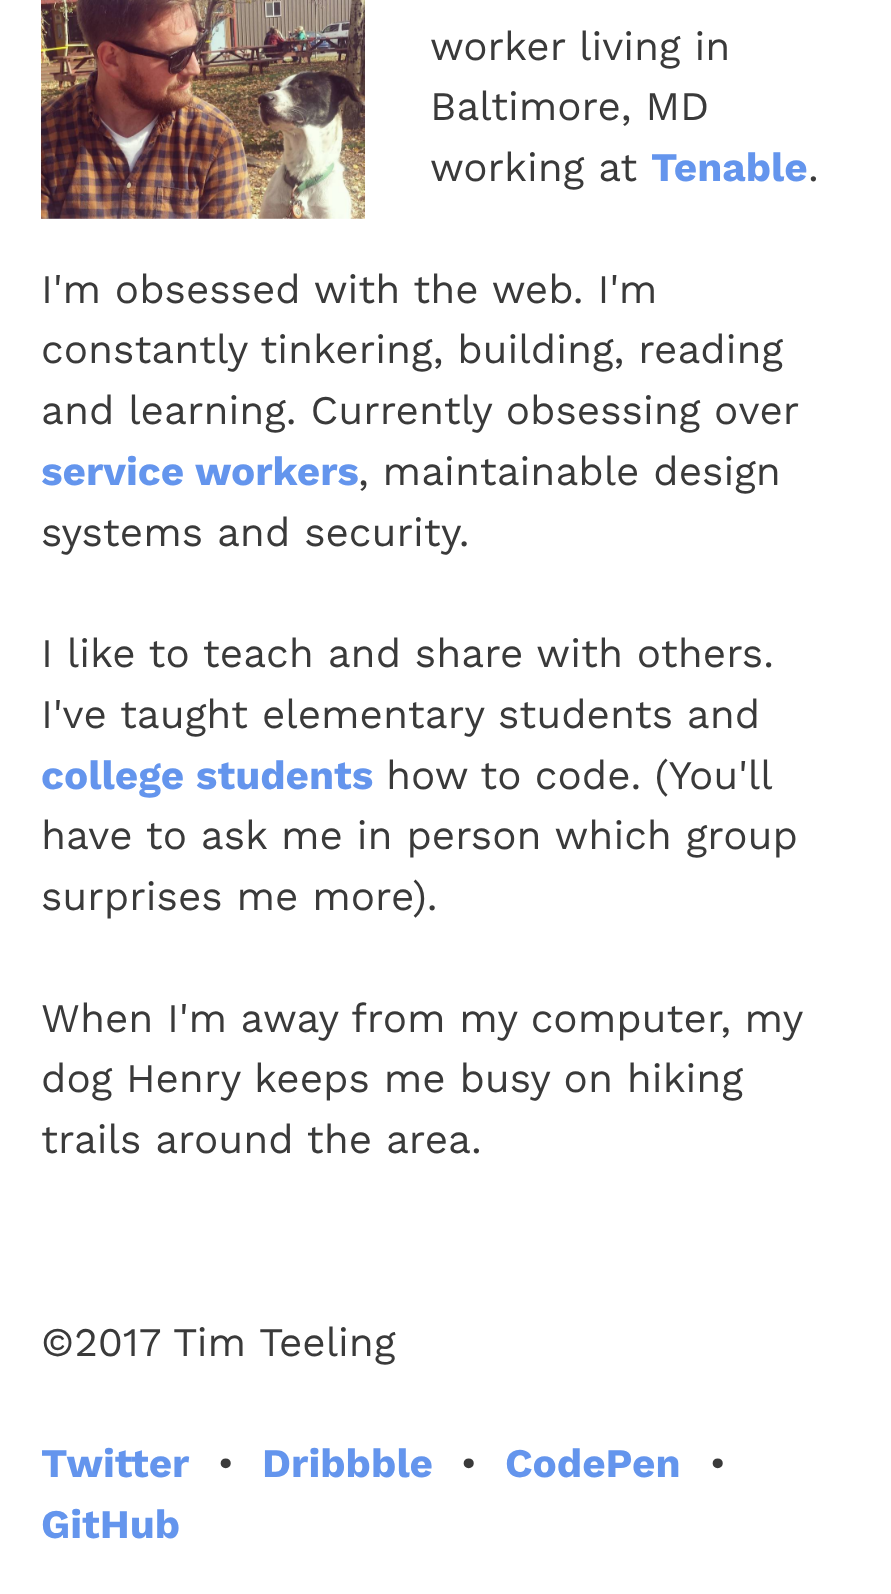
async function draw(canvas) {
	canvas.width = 891;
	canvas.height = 1594;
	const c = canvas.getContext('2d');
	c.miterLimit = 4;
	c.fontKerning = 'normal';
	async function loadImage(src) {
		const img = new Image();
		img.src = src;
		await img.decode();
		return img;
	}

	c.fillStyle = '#fff';
	c.fillRect(0, 0, 891, 1594);
	c.drawImage(await loadImage('img1.png'), 41, 0, 324, 219);
	c.font = '40.5px Work Sans';
	c.fillStyle = '#3a3a3a';
	for (const [text, x, y] of [
		['worker living in', 430, 60],
		['Baltimore, MD', 430, 120],
		['working at', 430, 181],
	]) {
		c.fillText(text, x, y);
	}
	c.font = 'bold 40.5px Work Sans';
	c.fillStyle = '#6495ed';
	c.fillText('Tenable', 651, 181);
	c.font = '40.5px Work Sans';
	c.fillStyle = '#3a3a3a';
	for (const [text, x, y] of [
		['.', 808, 181],
		['I\'m obsessed with the web. I\'m', 41, 303],
		['constantly tinkering, building, reading', 41, 363],
		['and learning. Currently obsessing over', 41, 424],
	]) {
		c.fillText(text, x, y);
	}
	c.font = 'bold 40.5px Work Sans';
	c.fillStyle = '#6495ed';
	c.fillText('service workers', 41, 485);
	c.font = '40.5px Work Sans';
	c.fillStyle = '#3a3a3a';
	for (const [text, x, y] of [
		[', maintainable design', 358, 485],
		['systems and security.', 41, 546],
		['I like to teach and share with others.', 41, 667],
		['I\'ve taught elementary students and', 41, 728],
	]) {
		c.fillText(text, x, y);
	}
	c.font = 'bold 40.5px Work Sans';
	c.fillStyle = '#6495ed';
	c.fillText('college students', 41, 789);
	c.wordSpacing = '-0.5px';
	c.font = '40.5px Work Sans';
	c.fillStyle = '#3a3a3a';
	c.fillText('how to code. (You\'ll', 386, 789);
	c.wordSpacing = '0px';
	c.fillText('have to ask me in person which group', 41, 849);
	c.fillText('surprises me more).', 41, 910);
	c.wordSpacing = '-0.25px';
	c.fillText('When I\'m away from my computer, my', 41, 1032);
	c.wordSpacing = '0px';
	for (const [text, x, y] of [
		['dog Henry keeps me busy on hiking', 41, 1092],
		['trails around the area.', 41, 1153],
		['©2017 Tim Teeling', 41, 1356],
	]) {
		c.fillText(text, x, y);
	}
	c.font = 'bold 40.5px Work Sans';
	c.fillStyle = '#6495ed';
	c.fillText('Twitter', 41, 1477);
	c.font = '40.5px Work Sans';
	c.fillStyle = '#3a3a3a';
	c.fillText('•', 217, 1477);
	c.font = 'bold 40.5px Work Sans';
	c.fillStyle = '#6495ed';
	c.fillText('Dribbble', 262, 1477);
	c.font = '40.5px Work Sans';
	c.fillStyle = '#3a3a3a';
	c.fillText('•', 460, 1477);
	c.font = 'bold 40.5px Work Sans';
	c.fillStyle = '#6495ed';
	c.fillText('CodePen', 505, 1477);
	c.font = '40.5px Work Sans';
	c.fillStyle = '#3a3a3a';
	c.fillText('•', 709, 1477);
	c.font = 'bold 40.5px Work Sans';
	c.fillStyle = '#6495ed';
	c.fillText('GitHub', 41, 1538);
}

draw(document.querySelector('canvas'));
